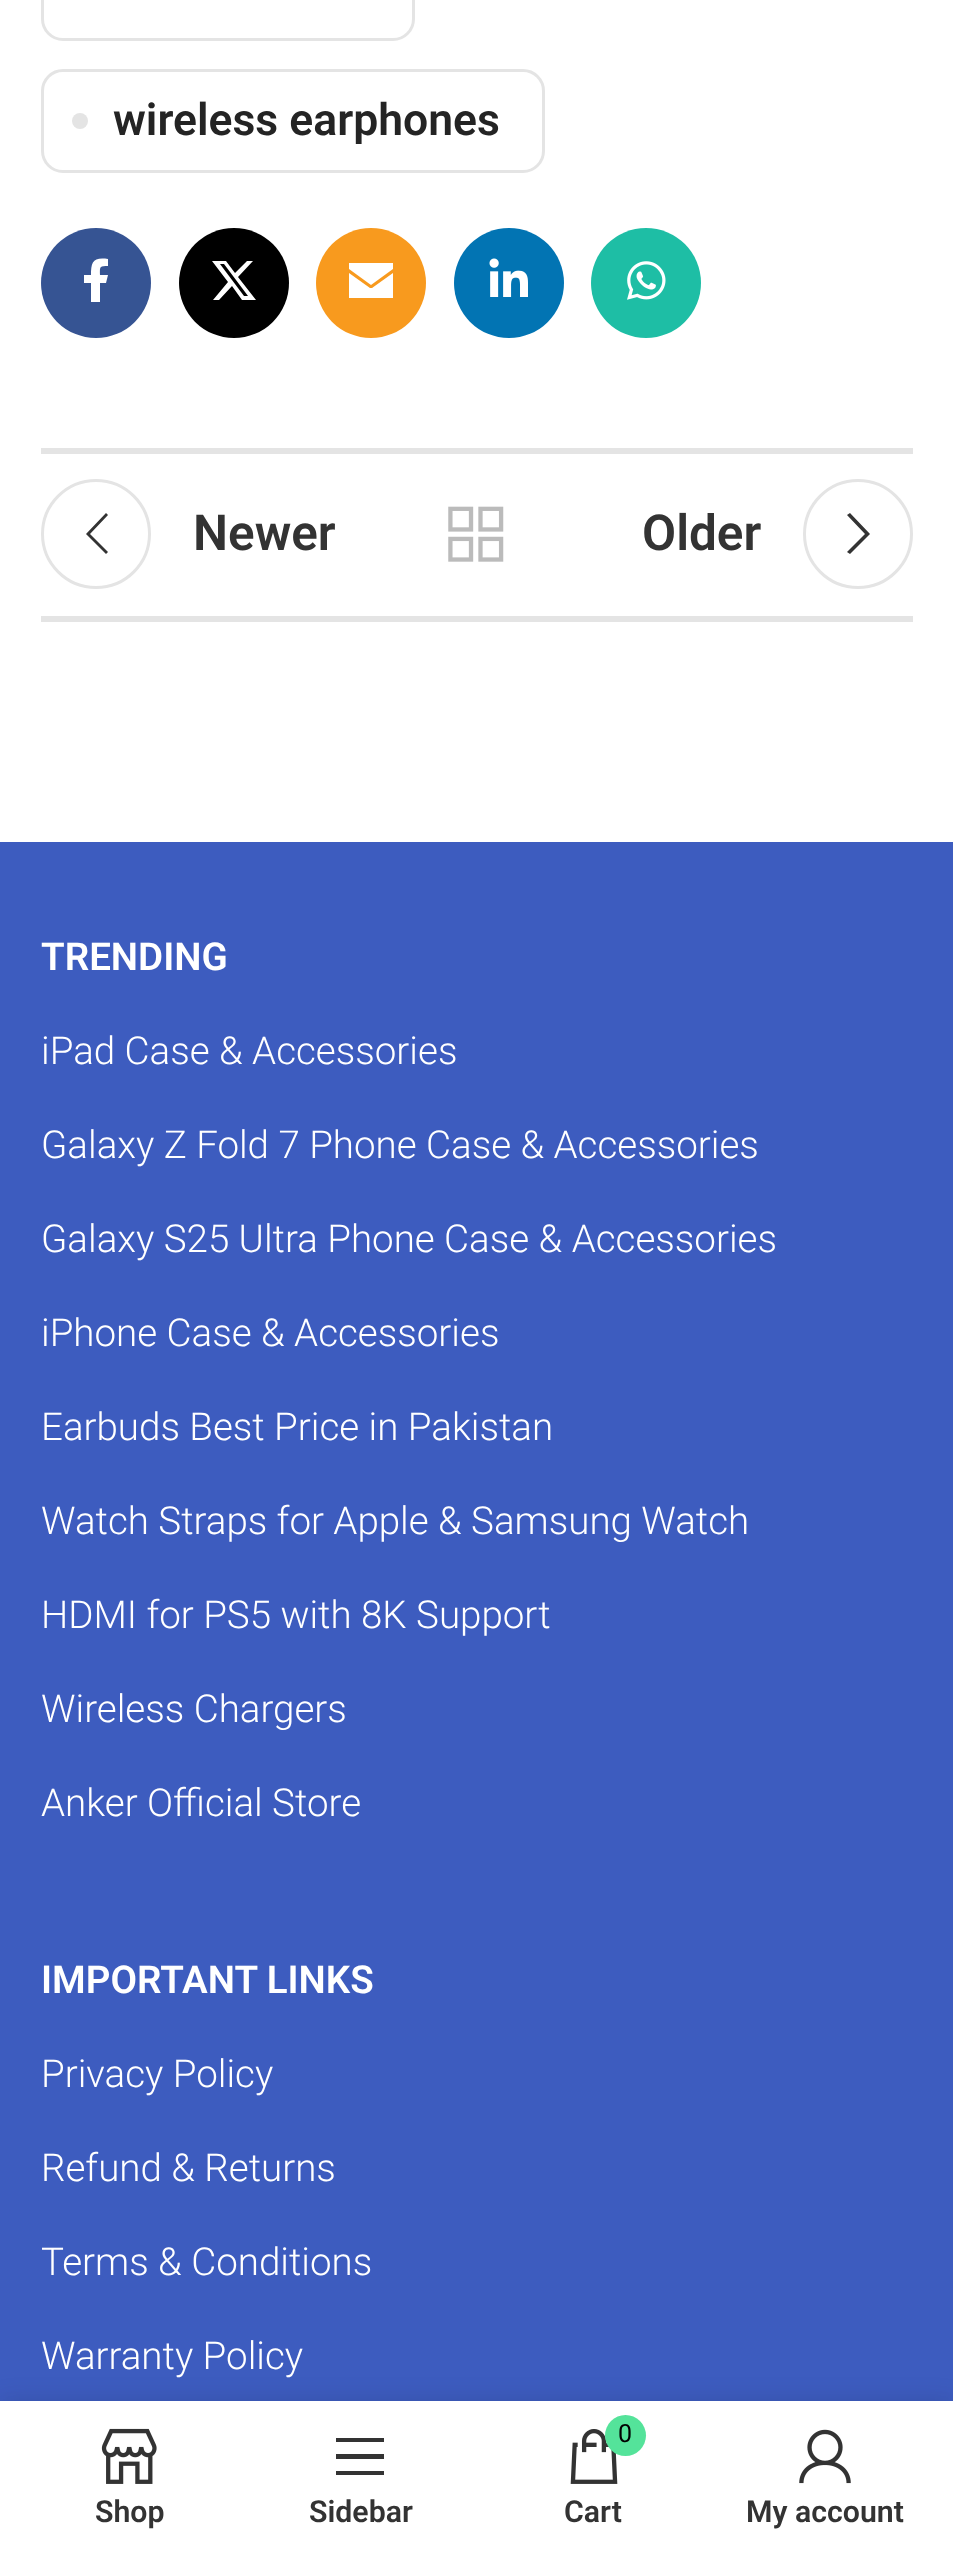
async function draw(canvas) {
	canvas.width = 953;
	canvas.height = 2550;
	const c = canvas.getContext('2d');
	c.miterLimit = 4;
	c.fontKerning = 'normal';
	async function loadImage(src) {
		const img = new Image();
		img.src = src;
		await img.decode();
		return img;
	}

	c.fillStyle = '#fff';
	c.fillRect(0, 0, 953, 2550);
	c.beginPath();
	c.roundRect(42.5, -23.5, 371, 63, 20.5);
	c.strokeStyle = '#e4e4e4';
	c.lineWidth = 3;
	c.stroke();
	c.beginPath();
	c.roundRect(42.5, 70.5, 501, 101, 20.5);
	c.stroke();
	c.fillStyle = '#e4e4e4';
	c.beginPath();
	c.arc(80, 121, 8, 0, 2 * Math.PI);
	c.fill();
	c.font = '600 44.5px Roboto';
	c.fillStyle = '#242424';
	c.fillText('wireless earphones', 113, 135);
	c.fillStyle = '#365493';
	c.beginPath();
	c.arc(96, 283, 55, 0, 2 * Math.PI);
	c.fill();
	c.fillStyle = '#fff';
	c.beginPath();
	c.moveTo(106, 283);
	c.lineTo(108, 275);
	c.lineTo(100, 275);
	c.bezierCurveTo(100, 267, 99, 266, 108, 266);
	c.lineTo(108, 259);
	c.bezierCurveTo(93, 257, 91, 262, 91, 275);
	c.lineTo(84, 275);
	c.lineTo(84, 283);
	c.lineTo(91, 283);
	c.lineTo(91, 302);
	c.lineTo(100, 302);
	c.lineTo(100, 283);
	c.closePath();
	c.fill();
	c.fillStyle = '#000';
	c.beginPath();
	c.arc(234, 283, 55, 0, 2 * Math.PI);
	c.fill();
	c.fillStyle = '#fff';
	c.beginPath();
	c.moveTo(247, 261);
	c.lineTo(253, 261);
	c.lineTo(238, 277);
	c.lineTo(256, 300);
	c.lineTo(242, 300);
	c.lineTo(232, 286);
	c.lineTo(219, 300);
	c.lineTo(213, 300);
	c.lineTo(228, 282);
	c.lineTo(212, 261);
	c.lineTo(226, 261);
	c.lineTo(235, 273);
	c.closePath();
	c.moveTo(244, 296);
	c.lineTo(248, 296);
	c.lineTo(224, 264);
	c.lineTo(220, 264);
	c.closePath();
	c.fill();
	c.fillStyle = '#f89a1e';
	c.beginPath();
	c.arc(371, 283, 55, 0, 2 * Math.PI);
	c.fill();
	c.fillStyle = '#fff';
	c.beginPath();
	c.moveTo(393, 263);
	c.lineTo(349, 263);
	c.lineTo(349, 269);
	c.lineTo(371, 285);
	c.lineTo(393, 269);
	c.closePath();
	c.moveTo(393, 273);
	c.lineTo(372, 288);
	c.lineTo(370, 288);
	c.lineTo(349, 273);
	c.lineTo(349, 298);
	c.lineTo(393, 298);
	c.closePath();
	c.fill();
	c.fillStyle = '#0274b3';
	c.beginPath();
	c.arc(509, 283, 55, 0, 2 * Math.PI);
	c.fill();
	c.drawImage(await loadImage('img1.png'), 489, 258, 39, 39);
	c.fillStyle = '#1ebea5';
	c.beginPath();
	c.arc(646, 283, 55, 0, 2 * Math.PI);
	c.fill();
	c.drawImage(await loadImage('img2.png'), 627, 261, 39, 39);
	c.fillStyle = '#e4e4e4';
	c.fillRect(41, 448, 872, 6);
	c.fillRect(41, 616, 872, 6);
	c.beginPath();
	c.arc(96, 534, 53.5, 0, 2 * Math.PI);
	c.stroke();
	c.fillStyle = '#333';
	c.beginPath();
	c.moveTo(108, 515);
	c.lineTo(106, 513);
	c.lineTo(86, 534);
	c.lineTo(106, 554);
	c.lineTo(108, 552);
	c.lineTo(90, 534);
	c.closePath();
	c.fill();
	c.font = '600 49.5px Roboto';
	c.fillText('Newer', 193, 550);
	c.drawImage(await loadImage('img3.png'), 448, 506, 56, 56);
	c.fillText('Older', 642, 550);
	c.beginPath();
	c.arc(858, 534, 53.5, 0, 2 * Math.PI);
	c.stroke();
	c.beginPath();
	c.moveTo(847, 515);
	c.lineTo(865, 534);
	c.lineTo(847, 552);
	c.lineTo(850, 554);
	c.lineTo(870, 534);
	c.lineTo(850, 513);
	c.closePath();
	c.fill();
	c.fillStyle = '#3d5cbf';
	c.fillRect(0, 842, 953, 1559);
	c.font = '600 38.5px Roboto';
	c.fillStyle = '#fff';
	c.fillText('TRENDING', 41, 970);
	c.font = '300 38.5px Roboto';
	for (const [text, x, y] of [
		['iPad Case & Accessories', 41, 1064],
		['Galaxy Z Fold 7 Phone Case & Accessories', 41, 1158],
		['Galaxy S25 Ultra Phone Case & Accessories', 41, 1252],
		['iPhone Case & Accessories', 41, 1346],
		['Earbuds Best Price in Pakistan', 41, 1440],
		['Watch Straps for Apple & Samsung Watch', 41, 1534],
		['HDMI for PS5 with 8K Support', 41, 1628],
		['Wireless Chargers', 41, 1722],
		['Anker Official Store', 41, 1816],
	]) {
		c.fillText(text, x, y);
	}
	c.font = '600 38.5px Roboto';
	c.fillText('IMPORTANT LINKS', 41, 1993);
	c.font = '300 38.5px Roboto';
	for (const [text, x, y] of [
		['Privacy Policy', 41, 2087],
		['Refund & Returns', 41, 2181],
		['Terms & Conditions', 41, 2275],
		['Warranty Policy', 41, 2369],
	]) {
		c.fillText(text, x, y);
	}
	c.fillStyle = '#0000001f';
	c.filter = 'blur(12.5px)';
	c.beginPath();
	c.rect(0, 2401, 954, 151);
	c.fill();
	c.filter = 'none';
	c.fillStyle = '#fff';
	c.fillRect(0, 2401, 953, 149);
	c.drawImage(await loadImage('img4.png'), 101, 2428, 56, 56);
	c.font = '600 30.25px Roboto';
	c.fillStyle = '#333';
	c.fillText('Shop', 95, 2522);
	c.beginPath();
	c.moveTo(336, 2442);
	c.lineTo(384, 2442);
	c.lineTo(384, 2438);
	c.lineTo(336, 2438);
	c.closePath();
	c.moveTo(336, 2459);
	c.lineTo(384, 2459);
	c.lineTo(384, 2454);
	c.lineTo(336, 2454);
	c.closePath();
	c.moveTo(336, 2475);
	c.lineTo(384, 2475);
	c.lineTo(384, 2471);
	c.lineTo(336, 2471);
	c.closePath();
	c.fill();
	c.fillText('Sidebar', 309, 2522);
	c.drawImage(await loadImage('img5.png'), 570, 2429, 48, 55);
	c.fillStyle = '#54e39a';
	c.beginPath();
	c.arc(625.5, 2435.5, 20.5, 0, 2 * Math.PI);
	c.fill();
	c.font = '25px Roboto';
	c.fillStyle = '#000';
	c.fillText('0', 618, 2442);
	c.font = '600 30.25px Roboto';
	c.fillStyle = '#333';
	c.fillText('Cart', 564, 2522);
	c.drawImage(await loadImage('img6.png'), 799, 2429, 52, 55);
	c.fillText('My account', 746, 2522);
}

draw(document.querySelector('canvas'));
